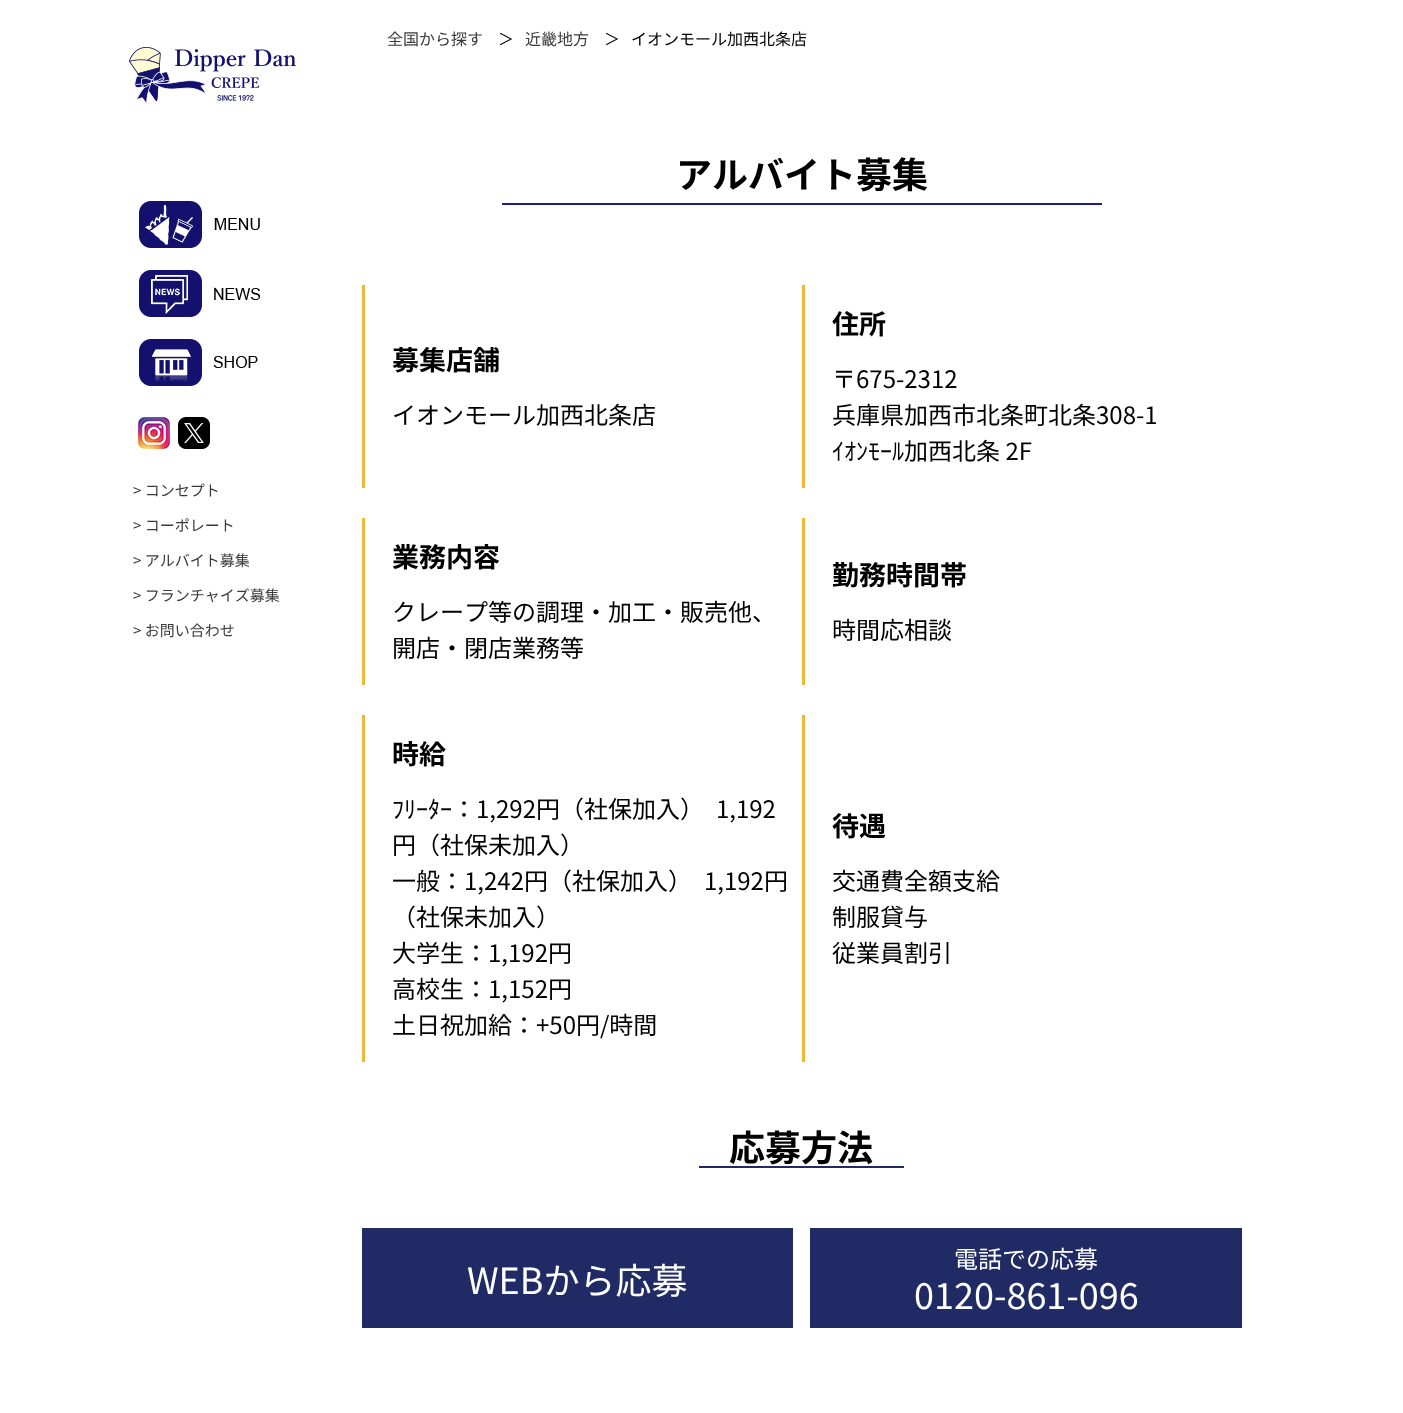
async function draw(canvas) {
	canvas.width = 1403;
	canvas.height = 1413;
	const c = canvas.getContext('2d');
	c.miterLimit = 4;
	c.fontKerning = 'normal';
	async function loadImage(src) {
		const img = new Image();
		img.src = src;
		await img.decode();
		return img;
	}

	c.fillStyle = '#fff';
	c.fillRect(0, 0, 1403, 1413);
	c.drawImage(await loadImage('img1.png'), 129, 47, 167, 58);
	c.drawImage(await loadImage('img2.png'), 139, 201, 121, 47);
	c.drawImage(await loadImage('img3.png'), 139, 270, 122, 47);
	c.drawImage(await loadImage('img4.png'), 139, 339, 119, 47);
	c.drawImage(await loadImage('img5.png'), 138, 417, 32, 32);
	c.drawImage(await loadImage('img6.png'), 178, 417, 32, 32);
	c.font = '15px Noto Sans JP';
	c.fillStyle = '#3a3a3a';
	for (const [text, x, y] of [
		['> コンセプト', 133, 496],
		['> コーポレート', 133, 531],
		['> アルバイト募集', 133, 566],
		['> フランチャイズ募集', 133, 601],
		['> お問い合わせ', 133, 636],
	]) {
		c.fillText(text, x, y);
	}
	c.font = '16px Noto Sans JP';
	c.fillText('全国から探す', 387, 45);
	c.fillStyle = '#000';
	c.fillText('＞', 498, 45);
	c.fillStyle = '#3a3a3a';
	c.fillText('近畿地方', 525, 45);
	c.fillStyle = '#000';
	c.fillText('＞', 604, 45);
	c.fillText('イオンモール加西北条店', 631, 45);
	c.fillStyle = '#1d2088';
	c.fillRect(502, 203, 600, 2);
	c.font = 'bold 36px Noto Sans JP';
	c.fillStyle = '#000';
	c.fillText('アルバイト募集', 676, 188);
	c.fillStyle = '#efb838';
	c.fillRect(362, 285, 3, 203);
	c.font = 'bold 27px Noto Sans JP';
	c.fillStyle = '#000';
	c.fillText('募集店舗', 392, 370);
	c.font = '24px Noto Sans JP';
	c.fillText('イオンモール加西北条店', 392, 424);
	c.fillStyle = '#efb838';
	c.fillRect(802, 285, 3, 203);
	c.font = 'bold 27px Noto Sans JP';
	c.fillStyle = '#000';
	c.fillText('住所', 832, 334);
	c.font = '24px Noto Sans JP';
	for (const [text, x, y] of [
		['〒675-2312', 832, 388],
		['兵庫県加西市北条町北条308-1', 832, 424],
		['ｲｵﾝﾓｰﾙ加西北条 2F', 832, 460],
	]) {
		c.fillText(text, x, y);
	}
	c.fillStyle = '#efb838';
	c.fillRect(362, 518, 3, 167);
	c.font = 'bold 27px Noto Sans JP';
	c.fillStyle = '#000';
	c.fillText('業務内容', 392, 567);
	c.font = '24px Noto Sans JP';
	c.fillText('クレープ等の調理・加工・販売他、', 392, 621);
	c.fillText('開店・閉店業務等', 392, 657);
	c.fillStyle = '#efb838';
	c.fillRect(802, 518, 3, 167);
	c.font = 'bold 27px Noto Sans JP';
	c.fillStyle = '#000';
	c.fillText('勤務時間帯', 832, 585);
	c.font = '24px Noto Sans JP';
	c.fillText('時間応相談', 832, 639);
	c.fillStyle = '#efb838';
	c.fillRect(362, 715, 3, 347);
	c.font = 'bold 27px Noto Sans JP';
	c.fillStyle = '#000';
	c.fillText('時給', 392, 764);
	c.font = '24px Noto Sans JP';
	for (const [text, x, y] of [
		['ﾌﾘｰﾀｰ：1,292円（社保加入）　1,192', 392, 818],
		['円（社保未加入）', 392, 854],
		['一般：1,242円（社保加入）　1,192円', 392, 890],
		['（社保未加入）', 392, 926],
		['大学生：1,192円', 392, 962],
		['高校生：1,152円', 392, 998],
		['土日祝加給：+50円/時間', 392, 1034],
	]) {
		c.fillText(text, x, y);
	}
	c.fillStyle = '#efb838';
	c.fillRect(802, 715, 3, 347);
	c.font = 'bold 27px Noto Sans JP';
	c.fillStyle = '#000';
	c.fillText('待遇', 832, 836);
	c.font = '24px Noto Sans JP';
	for (const [text, x, y] of [
		['交通費全額支給', 832, 890],
		['制服貸与', 832, 926],
		['従業員割引', 832, 962],
	]) {
		c.fillText(text, x, y);
	}
	c.fillStyle = '#202a65';
	c.fillRect(699, 1166, 205, 2);
	c.font = 'bold 36px Noto Sans JP';
	c.fillStyle = '#000';
	c.fillText('応募方法', 729, 1161);
	c.fillStyle = '#202a65';
	c.fillRect(362, 1228, 431, 100);
	c.font = '36px Noto Sans JP';
	c.fillStyle = '#fff';
	c.fillText('WEBから応募', 467, 1294);
	c.fillStyle = '#202a65';
	c.fillRect(810, 1228, 432, 100);
	c.font = '24px Noto Sans JP';
	c.fillStyle = '#fff';
	c.fillText('電話での応募', 954, 1268);
	c.font = '36px Noto Sans JP';
	c.fillText('0120-861-096', 914, 1309);
}

draw(document.querySelector('canvas'));
